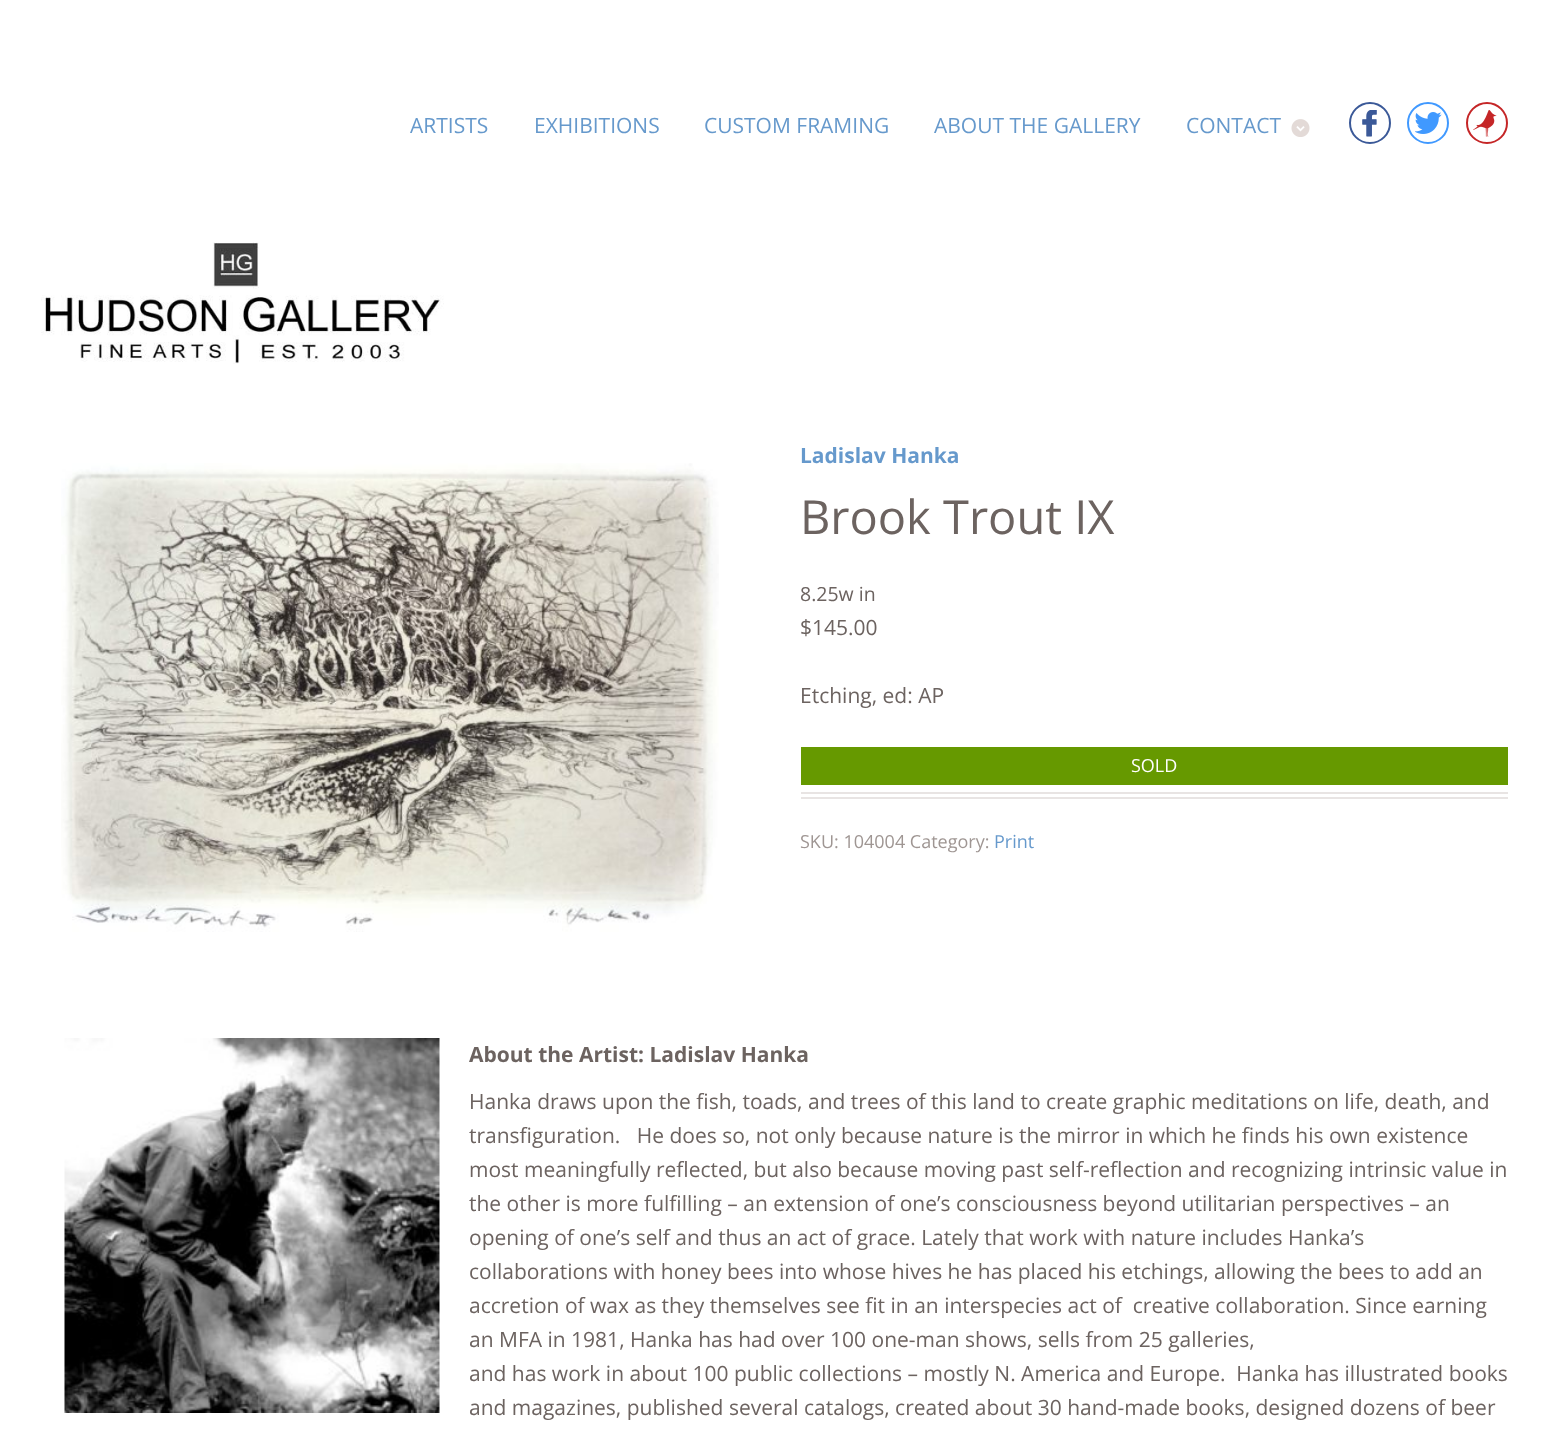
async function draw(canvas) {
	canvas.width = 1541;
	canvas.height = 1436;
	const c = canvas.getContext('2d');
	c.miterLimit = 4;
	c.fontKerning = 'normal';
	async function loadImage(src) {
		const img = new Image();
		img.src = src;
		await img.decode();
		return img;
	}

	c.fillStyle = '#fff';
	c.fillRect(0, 0, 1541, 1436);
	c.font = '21px Open Sans';
	c.fillStyle = '#69c';
	for (const [text, x, y] of [
		['ARTISTS', 410, 133],
		['EXHIBITIONS', 534, 133],
		['CUSTOM FRAMING', 704, 133],
		['ABOUT THE GALLERY', 934, 133],
		['CONTACT', 1186, 133],
	]) {
		c.fillText(text, x, y);
	}
	c.drawImage(await loadImage('img1.png'), 1291, 119, 19, 18);
	c.beginPath();
	c.arc(1370, 123, 20, 0, 2 * Math.PI);
	c.strokeStyle = '#3b5998';
	c.lineWidth = 2;
	c.stroke();
	c.drawImage(await loadImage('img2.png'), 1362, 110, 15, 27);
	c.beginPath();
	c.arc(1428, 123, 20, 0, 2 * Math.PI);
	c.strokeStyle = '#4099ff';
	c.stroke();
	c.drawImage(await loadImage('img3.png'), 1415, 112, 27, 22);
	c.beginPath();
	c.arc(1487, 123, 20, 0, 2 * Math.PI);
	c.strokeStyle = '#c52627';
	c.stroke();
	c.drawImage(await loadImage('img4.png'), 1473, 110, 24, 27);
	c.drawImage(await loadImage('img5.png'), 41, 242, 403, 122);
	c.drawImage(await loadImage('img6.png'), 61, 463, 658, 469);
	c.font = 'bold 21px Open Sans';
	c.fillText('Ladislav Hanka', 800, 463);
	c.font = '47px Open Sans';
	c.fillStyle = '#6c6360';
	c.fillText('Brook Trout IX', 800, 534);
	c.font = '19.5px Open Sans';
	c.fillText('8.25w in', 800, 601);
	c.font = '21px Open Sans';
	c.fillText('$145.00', 800, 635);
	c.fillText('Etching, ed: AP', 800, 703);
	c.fillStyle = '#690';
	c.fillRect(801, 747, 707, 38);
	c.font = '18px Open Sans';
	c.fillStyle = '#fff';
	c.fillText('SOLD', 1131, 772);
	c.fillStyle = '#e8e4e3';
	c.fillRect(801, 792, 707, 2);
	c.fillRect(801, 797, 707, 2);
	c.fillStyle = '#9f9693';
	c.fillText('SKU: 104004 Category:', 800, 848);
	c.fillStyle = '#69c';
	c.fillText('Print', 994, 848);
	c.drawImage(await loadImage('img7.png'), 64, 1038, 376, 375);
	c.font = 'bold 21px Open Sans';
	c.fillStyle = '#6c6360';
	c.fillText('About the Artist: Ladislav Hanka', 469, 1062);
	c.font = '21px Open Sans';
	for (const [text, x, y] of [
		['Hanka draws upon the fish, toads, and trees of this land to create graphic meditations on life, death, and', 469, 1109],
		['transfiguration.   He does so, not only because nature is the mirror in which he finds his own existence', 469, 1143],
		['most meaningfully reflected, but also because moving past self-reflection and recognizing intrinsic value in', 469, 1177],
		['the other is more fulfilling – an extension of one’s consciousness beyond utilitarian perspectives – an', 469, 1211],
		['opening of one’s self and thus an act of grace. Lately that work with nature includes Hanka’s', 469, 1245],
		['collaborations with honey bees into whose hives he has placed his etchings, allowing the bees to add an', 469, 1279],
		['accretion of wax as they themselves see fit in an interspecies act of  creative collaboration. Since earning', 469, 1313],
		['an MFA in 1981, Hanka has had over 100 one-man shows, sells from 25 galleries,', 469, 1347],
		['and has work in about 100 public collections – mostly N. America and Europe.  Hanka has illustrated books', 469, 1381],
		['and magazines, published several catalogs, created about 30 hand-made books, designed dozens of beer', 469, 1415],
	]) {
		c.fillText(text, x, y);
	}
}

draw(document.querySelector('canvas'));
